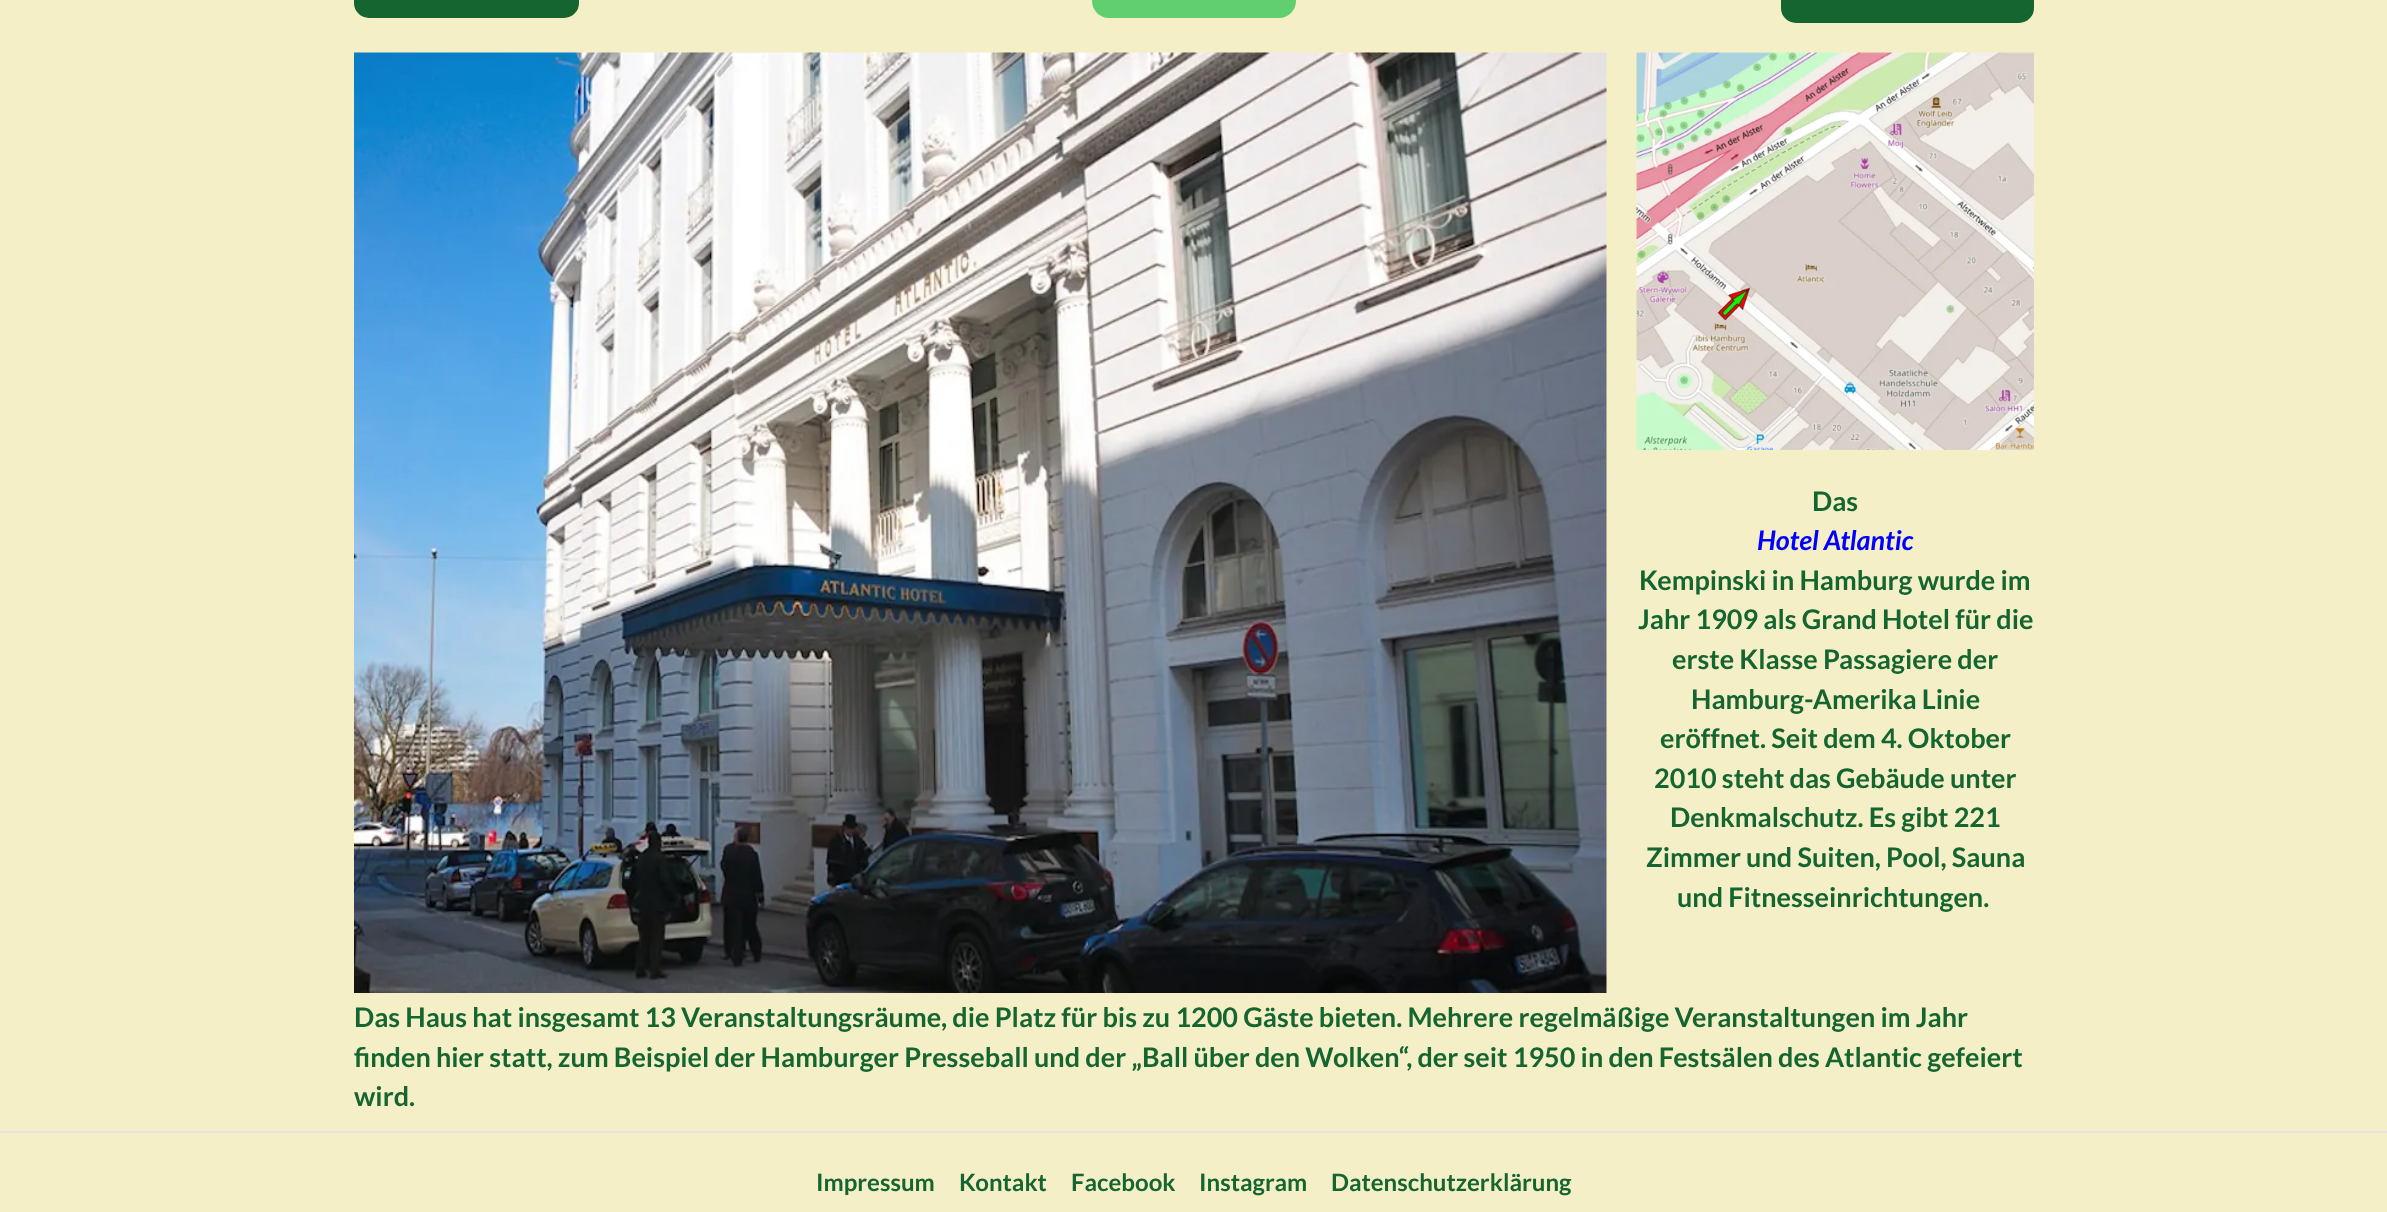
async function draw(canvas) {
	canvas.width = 2387;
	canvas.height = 1212;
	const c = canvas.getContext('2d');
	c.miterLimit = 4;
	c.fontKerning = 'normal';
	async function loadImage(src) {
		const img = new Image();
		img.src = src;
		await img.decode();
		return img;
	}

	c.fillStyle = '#f4efc6';
	c.fillRect(0, 0, 2387, 1212);
	c.fillStyle = '#146530';
	c.beginPath();
	c.roundRect(354, -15, 225, 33, 15);
	c.fill();
	c.fillStyle = '#61ce70';
	c.beginPath();
	c.roundRect(1092, -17, 204, 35, 17);
	c.fill();
	c.fillStyle = '#146530';
	c.beginPath();
	c.roundRect(1781, -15, 253, 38, 15);
	c.fill();
	c.drawImage(await loadImage('img1.png'), 354, 52, 1253, 941);
	c.drawImage(await loadImage('img2.png'), 1636, 52, 398, 398);
	c.font = 'bold 27px Lato';
	c.fillText('Das', 1812, 511);
	c.font = 'italic bold 27px Lato';
	c.fillStyle = '#00f';
	c.fillText('Hotel Atlantic', 1757, 550);
	c.font = 'bold 27px Lato';
	c.fillStyle = '#146530';
	for (const [text, x, y] of [
		['Kempinski in Hamburg wurde im', 1639, 590],
		['Jahr 1909 als Grand Hotel für die', 1638, 629],
		['erste Klasse Passagiere der', 1672, 669],
		['Hamburg-Amerika Linie', 1691, 709],
		['eröffnet. Seit dem 4. Oktober', 1660, 748],
		['2010 steht das Gebäude unter', 1654, 788],
		['Denkmalschutz. Es gibt 221', 1670, 827],
		['Zimmer und Suiten, Pool, Sauna', 1646, 867],
		['und Fitnesseinrichtungen.', 1677, 907],
		['Das Haus hat insgesamt 13 Veranstaltungsräume, die Platz für bis zu 1200 Gäste bieten. Mehrere regelmäßige Veranstaltungen im Jahr', 354, 1027],
		['finden hier statt, zum Beispiel der Hamburger Presseball und der „Ball über den Wolken“, der seit 1950 in den Festsälen des Atlantic gefeiert', 354, 1067],
		['wird.', 354, 1106],
	]) {
		c.fillText(text, x, y);
	}
	c.fillStyle = '#e5e5e5';
	c.fillRect(0, 1131, 2387, 2);
	c.font = 'bold 24px Lato';
	c.fillStyle = '#146530';
	for (const [text, x, y] of [
		['Impressum', 816, 1191],
		['Kontakt', 959, 1191],
		['Facebook', 1071, 1191],
		['Instagram', 1199, 1191],
		['Datenschutzerklärung', 1331, 1191],
	]) {
		c.fillText(text, x, y);
	}
}

draw(document.querySelector('canvas'));
